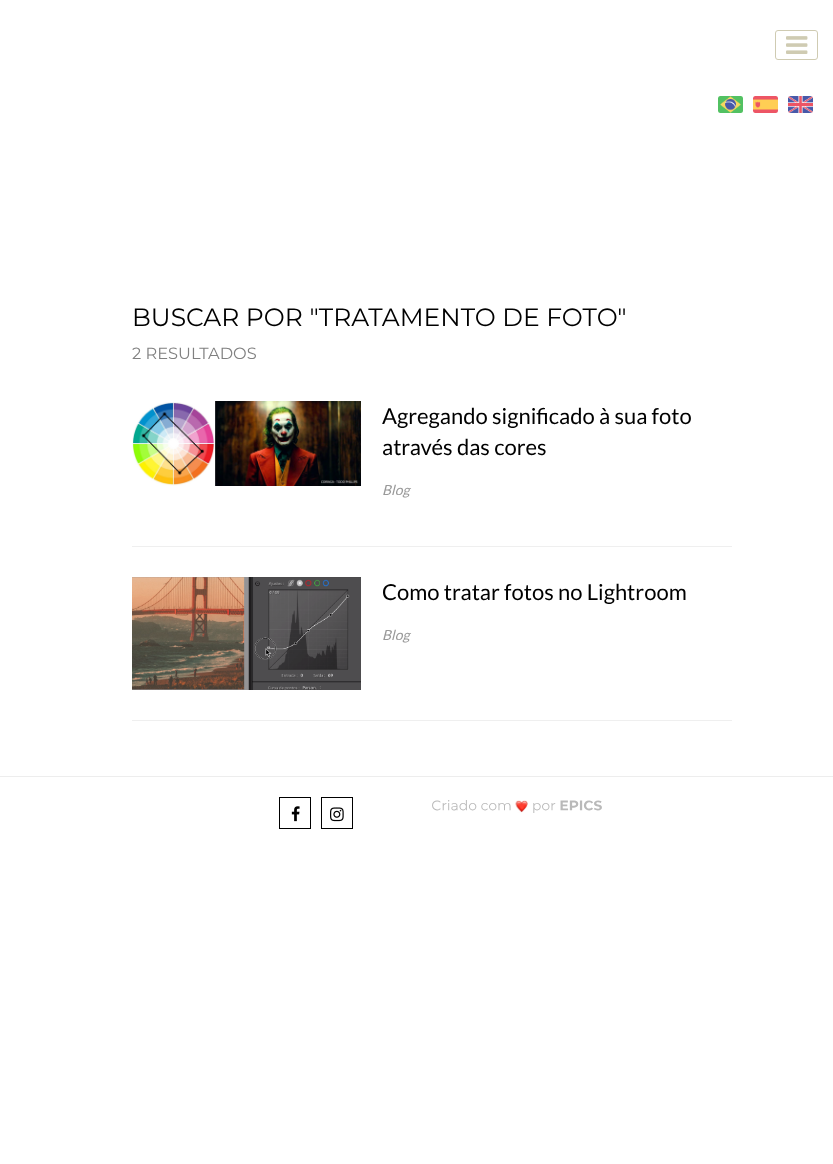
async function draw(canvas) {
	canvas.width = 833;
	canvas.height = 1164;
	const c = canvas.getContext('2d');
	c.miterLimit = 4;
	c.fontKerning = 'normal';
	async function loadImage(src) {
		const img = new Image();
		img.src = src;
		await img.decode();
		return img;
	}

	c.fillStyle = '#fff';
	c.fillRect(0, 0, 833, 1164);
	c.drawImage(await loadImage('img1.png'), 718, 96, 25, 17);
	c.drawImage(await loadImage('img2.png'), 753, 96, 25, 17);
	c.drawImage(await loadImage('img3.png'), 788, 96, 25, 17);
	c.beginPath();
	c.roundRect(775.5, 30.5, 42, 29, 2.5);
	c.strokeStyle = '#cfcbb2';
	c.stroke();
	c.drawImage(await loadImage('img4.png'), 786, 36, 22, 18);
	c.font = '25px Montserrat';
	c.fillStyle = '#000';
	c.fillText('BUSCAR POR "TRATAMENTO DE FOTO"', 132, 326);
	c.font = '16.25px Montserrat';
	c.fillStyle = '#808080';
	c.fillText('2 RESULTADOS', 132, 359);
	c.fillStyle = '#efefef';
	c.fillRect(132, 546, 600, 1);
	c.drawImage(await loadImage('img5.png'), 132, 401, 229, 85);
	c.font = '22px Lato';
	c.fillStyle = '#000';
	c.fillText('Agregando significado à sua foto', 382, 424);
	c.fillText('através das cores', 382, 455);
	c.font = 'italic 14px Lato';
	c.fillStyle = '#999';
	c.fillText('Blog', 382, 495);
	c.fillStyle = '#efefef';
	c.fillRect(132, 720, 600, 1);
	c.drawImage(await loadImage('img6.png'), 132, 577, 229, 113);
	c.font = '22px Lato';
	c.fillStyle = '#000';
	c.fillText('Como tratar fotos no Lightroom', 382, 600);
	c.font = 'italic 14px Lato';
	c.fillStyle = '#999';
	c.fillText('Blog', 382, 640);
	c.fillStyle = '#ededed';
	c.fillRect(0, 776, 833, 1);
	c.strokeStyle = '#000';
	c.strokeRect(279.5, 797.5, 31, 31);
	c.drawImage(await loadImage('img7.png'), 291, 806, 9, 16);
	c.strokeRect(321.5, 797.5, 31, 31);
	c.drawImage(await loadImage('img8.png'), 330, 807, 14, 15);
	c.drawImage(await loadImage('img9.png'), 432, 800, 170, 13);
}

draw(document.querySelector('canvas'));
